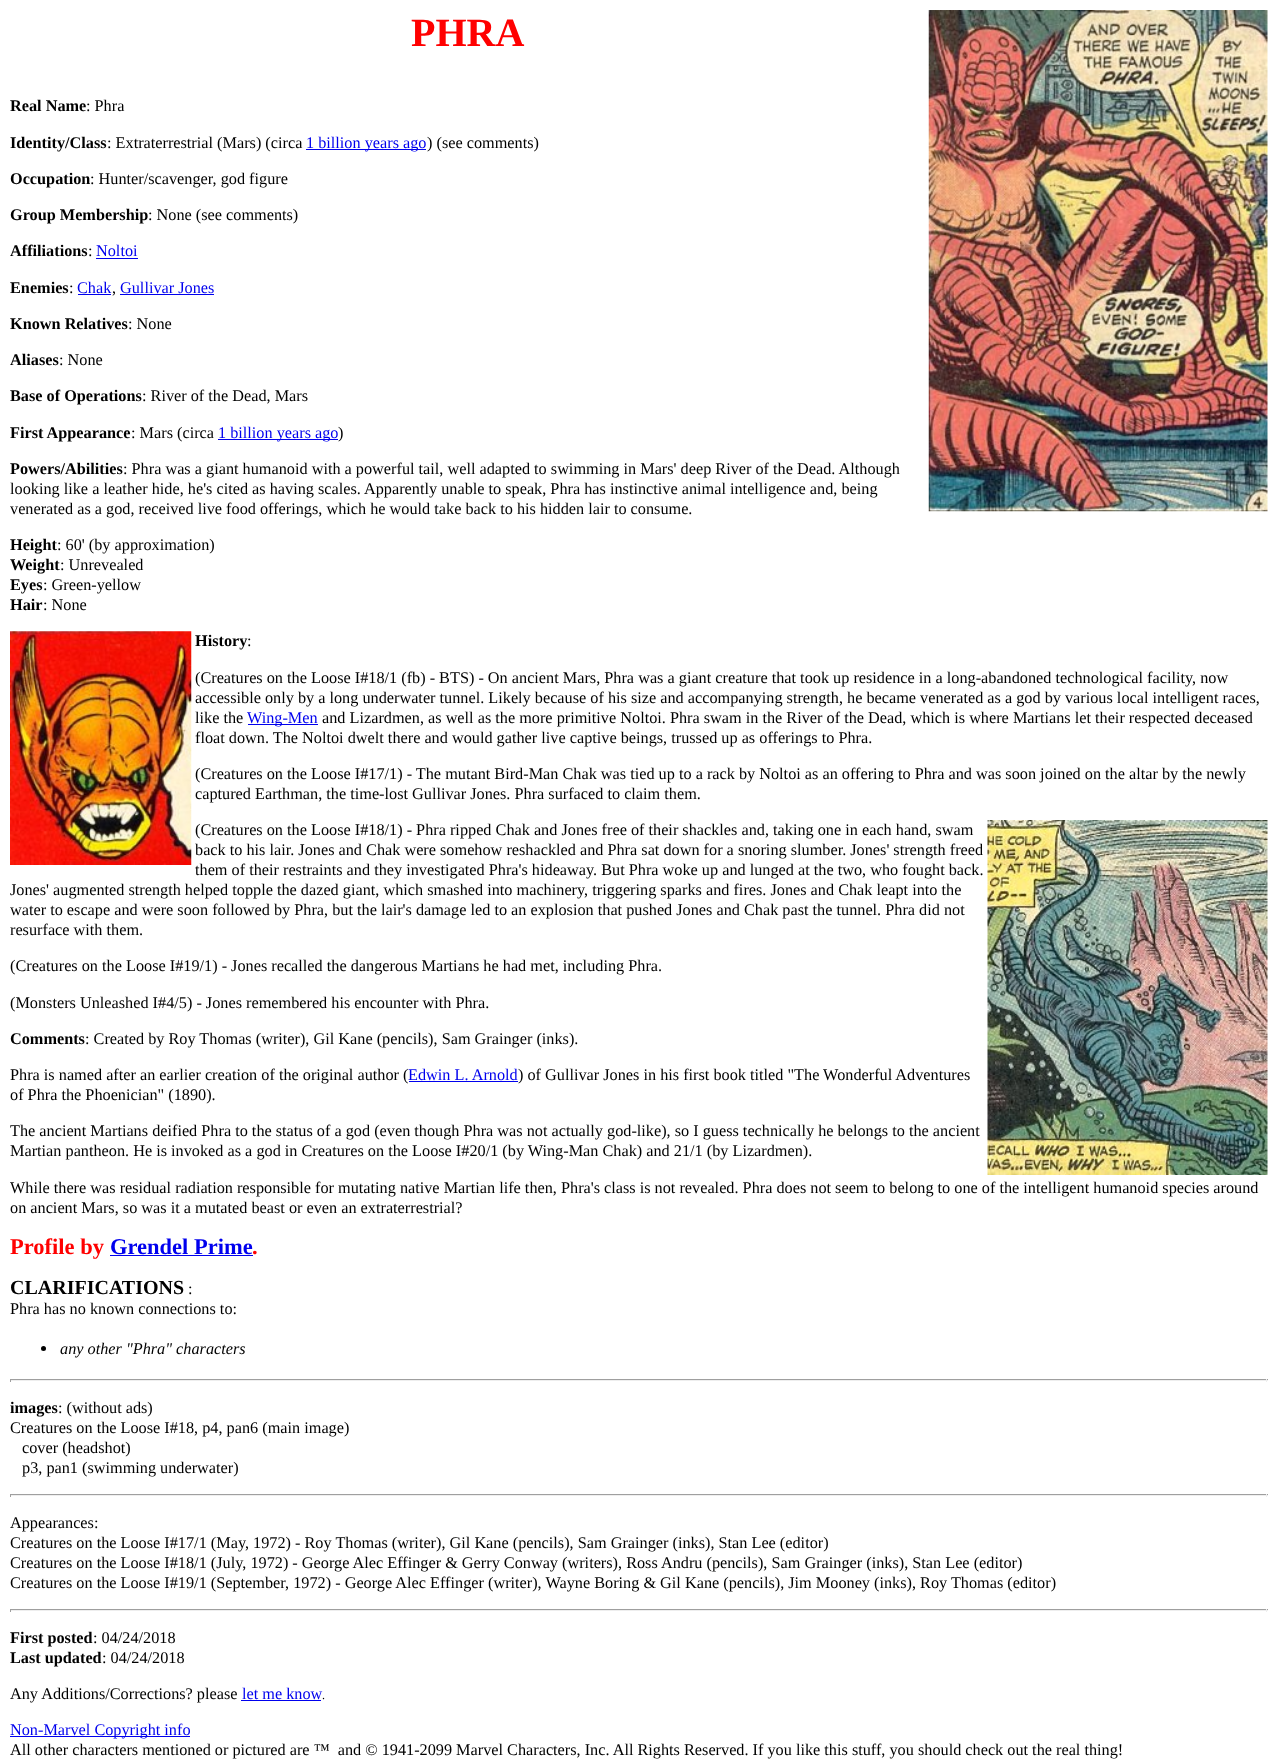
async function draw(canvas) {
	canvas.width = 1277;
	canvas.height = 1764;
	const c = canvas.getContext('2d');
	c.miterLimit = 4;
	c.fontKerning = 'normal';
	async function loadImage(src) {
		const img = new Image();
		img.src = src;
		await img.decode();
		return img;
	}

	c.fillStyle = '#fff';
	c.fillRect(0, 0, 1277, 1764);
	c.font = 'bold 40px Liberation Serif';
	c.fillStyle = '#f00';
	c.fillText('PHRA', 411, 46);
	c.drawImage(await loadImage('img1.png'), 928, 10, 340, 502);
	c.font = 'bold 16.25px Liberation Serif';
	c.fillStyle = '#000';
	c.fillText('Real Name', 10, 111);
	c.font = '16.25px Liberation Serif';
	c.fillText(': Phra', 86, 111);
	c.font = 'bold 16.25px Liberation Serif';
	c.fillText('Identity/Class', 10, 148);
	c.font = '16.25px Liberation Serif';
	c.fillText(': Extraterrestrial (Mars) (circa', 107, 148);
	c.fillStyle = '#00e';
	c.fillRect(306, 149, 120, 1);
	c.fillText('1 billion years ago', 306, 148);
	c.fillStyle = '#000';
	c.fillText(') (see comments)', 427, 148);
	c.font = 'bold 16.25px Liberation Serif';
	c.fillText('Occupation', 10, 184);
	c.font = '16.25px Liberation Serif';
	c.fillText(': Hunter/scavenger, god figure', 90, 184);
	c.font = 'bold 16.25px Liberation Serif';
	c.fillText('Group Membership', 10, 220);
	c.font = '16.25px Liberation Serif';
	c.fillText(': None (see comments)', 148, 220);
	c.font = 'bold 16.25px Liberation Serif';
	c.fillText('Affiliations', 10, 256);
	c.font = '16.25px Liberation Serif';
	c.fillText(':', 88, 256);
	c.fillStyle = '#00e';
	c.fillText('Noltoi', 96, 256);
	c.fillRect(96, 258, 42, 1);
	c.font = 'bold 16.25px Liberation Serif';
	c.fillStyle = '#000';
	c.fillText('Enemies', 10, 293);
	c.font = '16.25px Liberation Serif';
	c.fillText(':', 69, 293);
	c.fillStyle = '#00e';
	c.fillText('Chak', 77, 293);
	c.fillStyle = '#000';
	c.fillText(',', 112, 293);
	c.fillStyle = '#00e';
	c.fillRect(78, 294, 33, 1);
	c.fillRect(120, 294, 94, 1);
	c.fillText('Gullivar Jones', 120, 293);
	c.font = 'bold 16.25px Liberation Serif';
	c.fillStyle = '#000';
	c.fillText('Known Relatives', 10, 329);
	c.font = '16.25px Liberation Serif';
	c.fillText(': None', 128, 329);
	c.font = 'bold 16.25px Liberation Serif';
	c.fillText('Aliases', 10, 365);
	c.font = '16.25px Liberation Serif';
	c.fillText(': None', 59, 365);
	c.font = 'bold 16.25px Liberation Serif';
	c.fillText('Base of Operations', 10, 401);
	c.font = '16.25px Liberation Serif';
	c.fillText(': River of the Dead, Mars', 142, 401);
	c.font = 'bold 16.25px Liberation Serif';
	c.fillText('First Appearance', 10, 438);
	c.font = '16.25px Liberation Serif';
	c.fillText(': Mars (circa', 131, 438);
	c.fillStyle = '#00e';
	c.fillRect(218, 439, 120, 1);
	c.fillText('1 billion years ago', 218, 438);
	c.fillStyle = '#000';
	c.fillText(')', 338, 438);
	c.font = 'bold 16.25px Liberation Serif';
	c.fillText('Powers/Abilities', 10, 474);
	c.font = '16.25px Liberation Serif';
	for (const [text, x, y] of [
		[': Phra was a giant humanoid with a powerful tail, well adapted to swimming in Mars\' deep River of the Dead. Although', 123, 474],
		['looking like a leather hide, he\'s cited as having scales. Apparently unable to speak, Phra has instinctive animal intelligence and, being', 10, 494],
		['venerated as a god, received live food offerings, which he would take back to his hidden lair to consume.', 10, 514],
	]) {
		c.fillText(text, x, y);
	}
	c.font = 'bold 16.25px Liberation Serif';
	c.fillText('Height', 10, 550);
	c.font = '16.25px Liberation Serif';
	c.fillText(': 60\' (by approximation)', 57, 550);
	c.font = 'bold 16.25px Liberation Serif';
	c.fillText('Weight', 10, 570);
	c.font = '16.25px Liberation Serif';
	c.fillText(': Unrevealed', 60, 570);
	c.font = 'bold 16.25px Liberation Serif';
	c.fillText('Eyes', 10, 590);
	c.font = '16.25px Liberation Serif';
	c.fillText(': Green-yellow', 43, 590);
	c.font = 'bold 16.25px Liberation Serif';
	c.fillText('Hair', 10, 610);
	c.font = '16.25px Liberation Serif';
	c.fillText(': None', 43, 610);
	c.drawImage(await loadImage('img2.png'), 10, 631, 182, 234);
	c.font = 'bold 16.25px Liberation Serif';
	c.fillText('History', 195, 646);
	c.font = '16.25px Liberation Serif';
	for (const [text, x, y] of [
		[':', 247, 646],
		['(Creatures on the Loose I#18/1 (fb) - BTS) - On ancient Mars, Phra was a giant creature that took up residence in a long-abandoned technological facility, now', 195, 683],
		['accessible only by a long underwater tunnel. Likely because of his size and accompanying strength, he became venerated as a god by various local intelligent races,', 195, 703],
		['like the', 195, 723],
	]) {
		c.fillText(text, x, y);
	}
	c.fillStyle = '#00e';
	c.fillRect(248, 724, 70, 1);
	c.fillText('Wing-Men', 247, 723);
	c.fillStyle = '#000';
	for (const [text, x, y] of [
		['and Lizardmen, as well as the more primitive Noltoi. Phra swam in the River of the Dead, which is where Martians let their respected deceased', 322, 723],
		['float down. The Noltoi dwelt there and would gather live captive beings, trussed up as offerings to Phra.', 195, 743],
		['(Creatures on the Loose I#17/1) - The mutant Bird-Man Chak was tied up to a rack by Noltoi as an offering to Phra and was soon joined on the altar by the newly', 195, 779],
		['captured Earthman, the time-lost Gullivar Jones. Phra surfaced to claim them.', 195, 799],
		['(Creatures on the Loose I#18/1) - Phra ripped Chak and Jones free of their shackles and, taking one in each hand, swam', 195, 835],
	]) {
		c.fillText(text, x, y);
	}
	c.drawImage(await loadImage('img3.png'), 987, 820, 281, 355);
	for (const [text, x, y] of [
		['back to his lair. Jones and Chak were somehow reshackled and Phra sat down for a snoring slumber. Jones\' strength freed', 195, 855],
		['them of their restraints and they investigated Phra\'s hideaway. But Phra woke up and lunged at the two, who fought back.', 195, 875],
		['Jones\' augmented strength helped topple the dazed giant, which smashed into machinery, triggering sparks and fires. Jones and Chak leapt into the', 10, 895],
		['water to escape and were soon followed by Phra, but the lair\'s damage led to an explosion that pushed Jones and Chak past the tunnel. Phra did not', 10, 915],
		['resurface with them.', 10, 935],
		['(Creatures on the Loose I#19/1) - Jones recalled the dangerous Martians he had met, including Phra.', 10, 971],
		['(Monsters Unleashed I#4/5) - Jones remembered his encounter with Phra.', 10, 1008],
	]) {
		c.fillText(text, x, y);
	}
	c.font = 'bold 16.25px Liberation Serif';
	c.fillText('Comments', 10, 1044);
	c.font = '16.25px Liberation Serif';
	c.fillText(': Created by Roy Thomas (writer), Gil Kane (pencils), Sam Grainger (inks).', 85, 1044);
	c.fillText('Phra is named after an earlier creation of the original author (', 10, 1080);
	c.fillStyle = '#00e';
	c.fillText('Edwin L. Arnold', 408, 1080);
	c.fillStyle = '#000';
	c.fillText(') of Gullivar Jones in his first book titled "The Wonderful Adventures', 518, 1080);
	c.fillStyle = '#00e';
	c.fillRect(409, 1081, 109, 1);
	c.fillStyle = '#000';
	for (const [text, x, y] of [
		['of Phra the Phoenician" (1890).', 10, 1100],
		['The ancient Martians deified Phra to the status of a god (even though Phra was not actually god-like), so I guess technically he belongs to the ancient', 10, 1136],
		['Martian pantheon. He is invoked as a god in Creatures on the Loose I#20/1 (by Wing-Man Chak) and 21/1 (by Lizardmen).', 10, 1156],
		['While there was residual radiation responsible for mutating native Martian life then, Phra\'s class is not revealed. Phra does not seem to belong to one of the intelligent humanoid species around', 10, 1193],
		['on ancient Mars, so was it a mutated beast or even an extraterrestrial?', 10, 1213],
	]) {
		c.fillText(text, x, y);
	}
	c.font = 'bold 22.5px Liberation Serif';
	c.fillStyle = '#f00';
	c.fillText('Profile by', 10, 1254);
	c.fillStyle = '#00e';
	c.fillText('Grendel Prime', 110, 1254);
	c.fillStyle = '#f00';
	c.fillText('.', 252, 1254);
	c.fillStyle = '#00e';
	c.fillRect(110, 1255, 143, 1);
	c.font = 'bold 20px Liberation Serif';
	c.fillStyle = '#000';
	c.fillText('CLARIFICATIONS', 10, 1294);
	c.font = '16.25px Liberation Serif';
	c.fillText(':', 188, 1294);
	c.fillText('Phra has no known connections to:', 10, 1314);
	c.beginPath();
	c.arc(43.5, 1348.5, 2.5, 0, 2 * Math.PI);
	c.fill();
	c.font = 'italic 16.25px Liberation Serif';
	c.fillText('any other "Phra" characters', 60, 1354);
	for (const [x, y, w, h, color] of [
		[10, 1379, 1258, 1, '#9f9f9f'],
		[1266, 1379, 1, 3, '#eee'],
		[10, 1380, 1258, 1, '#eee'],
		[10, 1379, 1, 3, '#9f9f9f'],
	]) {
		c.fillStyle = color;
		c.fillRect(x, y, w, h);
	}
	c.font = 'bold 16.25px Liberation Serif';
	c.fillStyle = '#000';
	c.fillText('images', 10, 1413);
	c.font = '16.25px Liberation Serif';
	for (const [text, x, y] of [
		[': (without ads)', 58, 1413],
		['Creatures on the Loose I#18, p4, pan6 (main image)', 10, 1433],
		['cover (headshot)', 22, 1453],
		['p3, pan1 (swimming underwater)', 22, 1473],
	]) {
		c.fillText(text, x, y);
	}
	for (const [x, y, w, h, color] of [
		[10, 1494, 1258, 1, '#9f9f9f'],
		[1266, 1494, 1, 3, '#eee'],
		[10, 1495, 1258, 1, '#eee'],
		[10, 1494, 1, 3, '#9f9f9f'],
	]) {
		c.fillStyle = color;
		c.fillRect(x, y, w, h);
	}
	c.fillStyle = '#000';
	for (const [text, x, y] of [
		['Appearances:', 10, 1528],
		['Creatures on the Loose I#17/1 (May, 1972) - Roy Thomas (writer), Gil Kane (pencils), Sam Grainger (inks), Stan Lee (editor)', 10, 1548],
		['Creatures on the Loose I#18/1 (July, 1972) - George Alec Effinger & Gerry Conway (writers), Ross Andru (pencils), Sam Grainger (inks), Stan Lee (editor)', 10, 1568],
		['Creatures on the Loose I#19/1 (September, 1972) - George Alec Effinger (writer), Wayne Boring & Gil Kane (pencils), Jim Mooney (inks), Roy Thomas (editor)', 10, 1588],
	]) {
		c.fillText(text, x, y);
	}
	for (const [x, y, w, h, color] of [
		[10, 1609, 1258, 1, '#9f9f9f'],
		[1266, 1609, 1, 3, '#eee'],
		[10, 1610, 1258, 1, '#eee'],
		[10, 1609, 1, 3, '#9f9f9f'],
	]) {
		c.fillStyle = color;
		c.fillRect(x, y, w, h);
	}
	c.font = 'bold 16.25px Liberation Serif';
	c.fillStyle = '#000';
	c.fillText('First posted', 10, 1643);
	c.font = '16.25px Liberation Serif';
	c.fillText(': 04/24/2018', 93, 1643);
	c.font = 'bold 16.25px Liberation Serif';
	c.fillText('Last updated', 10, 1663);
	c.font = '16.25px Liberation Serif';
	c.fillText(': 04/24/2018', 102, 1663);
	c.fillText('Any Additions/Corrections? please', 10, 1699);
	c.fillStyle = '#00e';
	c.fillText('let me know', 242, 1699);
	c.fillRect(241, 1700, 80, 1);
	c.font = '12px Liberation Serif';
	c.fillStyle = '#000';
	c.fillText('.', 322, 1699);
	c.fillStyle = '#00e';
	c.fillRect(10, 1736, 180, 1);
	c.font = '16.25px Liberation Serif';
	c.fillText('Non-Marvel Copyright info', 10, 1735);
	c.fillStyle = '#000';
	c.fillText('All other characters mentioned or pictured are ™  and © 1941-2099 Marvel Characters, Inc. All Rights Reserved. If you like this stuff, you should check out the real thing!', 10, 1755);
}

draw(document.querySelector('canvas'));
